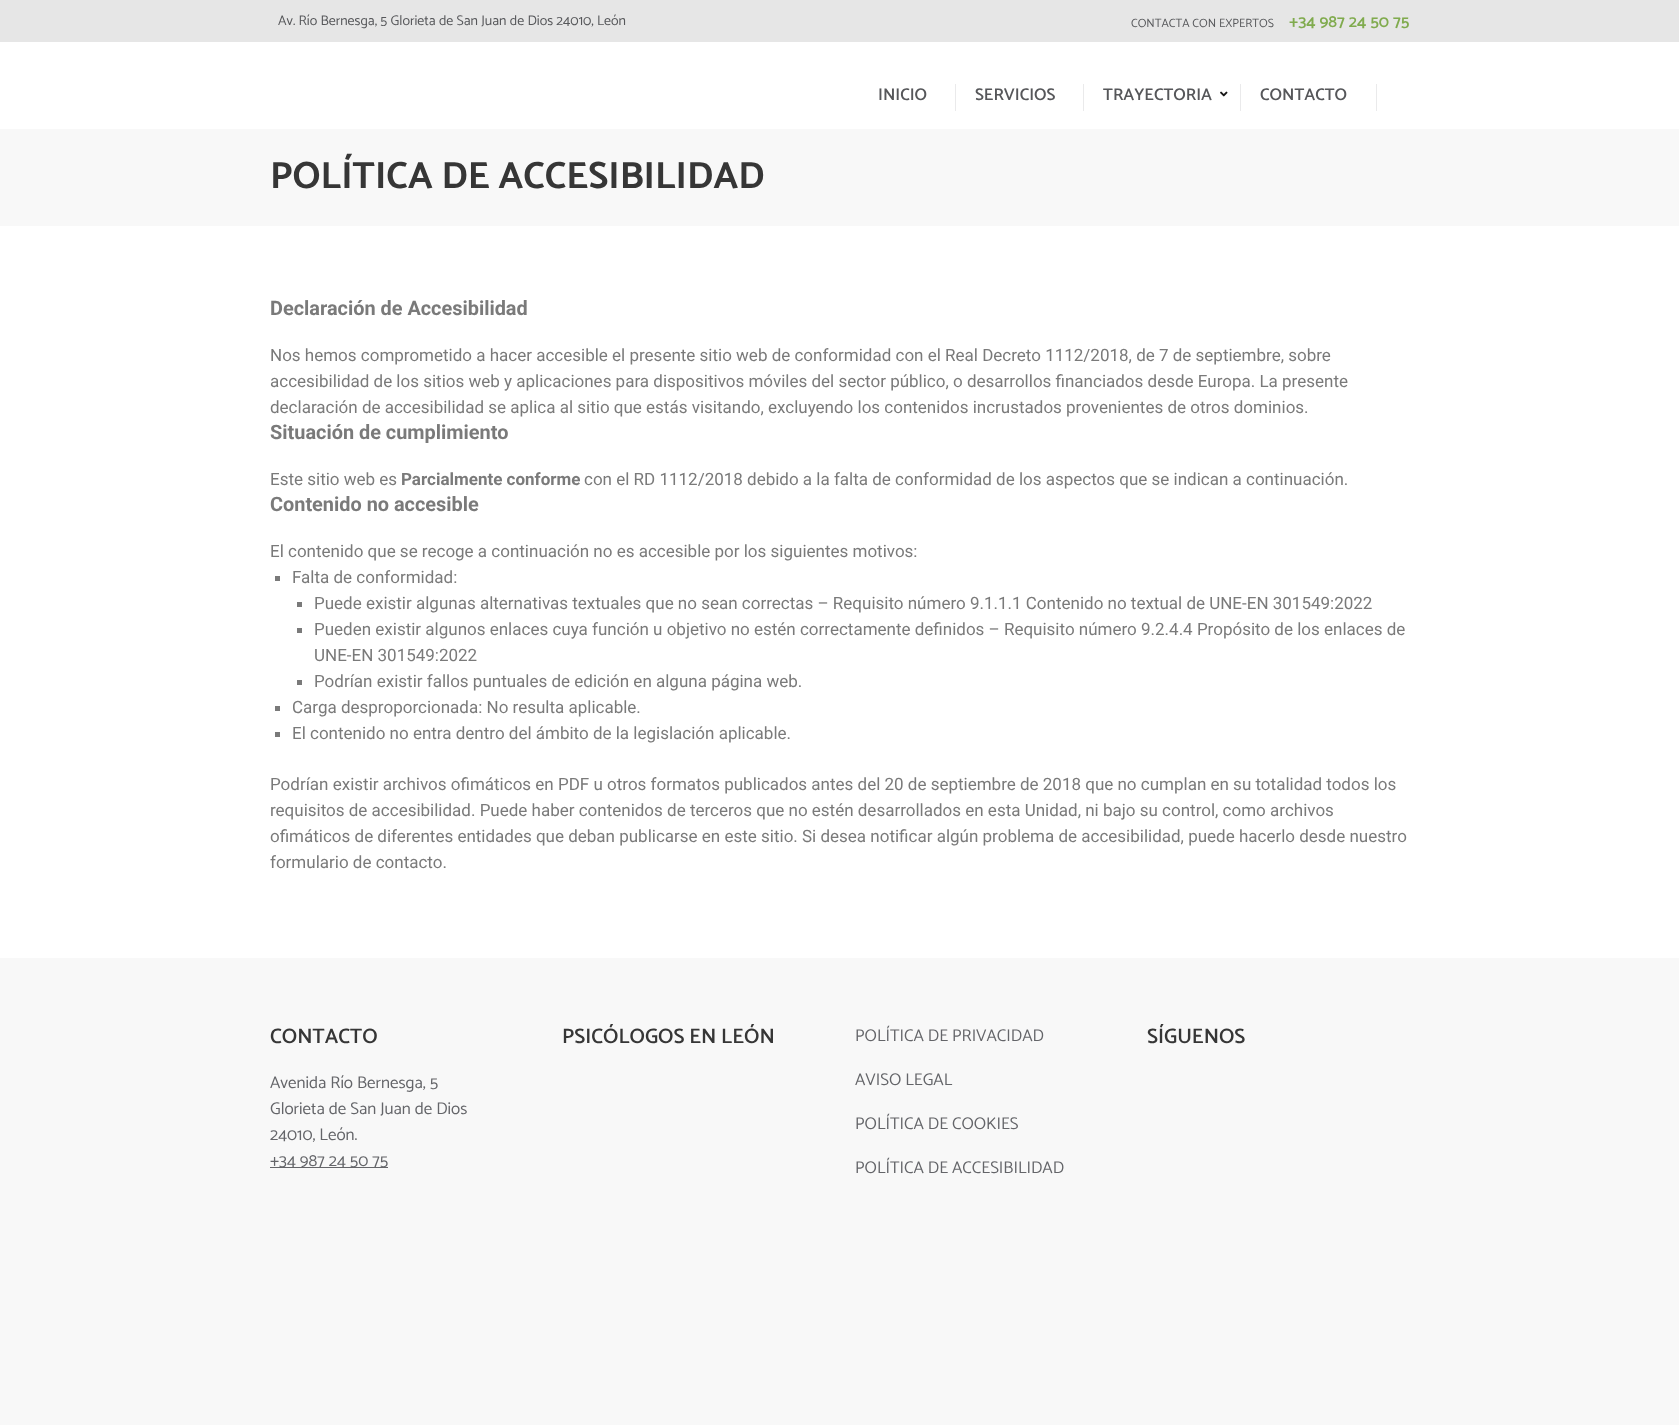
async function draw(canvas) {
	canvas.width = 1679;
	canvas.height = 1425;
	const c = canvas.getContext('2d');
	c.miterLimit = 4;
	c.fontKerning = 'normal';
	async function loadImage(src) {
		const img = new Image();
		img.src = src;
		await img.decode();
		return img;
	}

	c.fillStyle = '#fff';
	c.fillRect(0, 0, 1679, 1425);
	c.fillStyle = '#e6e6e6';
	c.fillRect(0, 0, 1679, 42);
	c.font = '14px Catamaran';
	c.fillStyle = '#56575a';
	c.fillText('Av. Río Bernesga, 5 Glorieta de San Juan de Dios 24010, León', 278, 25);
	c.font = '12px Catamaran';
	c.fillText('CONTACTA CON EXPERTOS', 1131, 27);
	c.font = '600 17px Catamaran';
	c.fillStyle = '#80ab4e';
	c.fillText('+34 987 24 50 75', 1289, 27);
	c.fillStyle = '#eaeaeb';
	c.fillRect(955, 84, 1, 27);
	c.fillStyle = '#56575a';
	c.fillText('INICIO', 878, 100);
	c.fillStyle = '#eaeaeb';
	c.fillRect(1083, 84, 1, 27);
	c.fillStyle = '#56575a';
	c.fillText('SERVICIOS', 975, 100);
	c.fillStyle = '#eaeaeb';
	c.fillRect(1240, 84, 1, 27);
	c.fillStyle = '#56575a';
	c.fillText('TRAYECTORIA', 1103, 100);
	c.drawImage(await loadImage('img1.png'), 1220, 91, 8, 6);
	c.fillStyle = '#eaeaeb';
	c.fillRect(1376, 84, 1, 27);
	c.fillStyle = '#56575a';
	c.fillText('CONTACTO', 1260, 100);
	c.fillStyle = '#f8f8f8';
	c.fillRect(0, 129, 1679, 97);
	c.font = 'bold 38px Catamaran';
	c.fillStyle = '#363636';
	c.fillText('POLÍTICA DE ACCESIBILIDAD', 270, 188);
	c.font = 'bold 19.9px Roboto';
	c.fillStyle = '#7a7a7a';
	c.fillText('Declaración de Accesibilidad', 270, 315);
	c.font = '17px Roboto';
	for (const [text, x, y] of [
		['Nos hemos comprometido a hacer accesible el presente sitio web de conformidad con el Real Decreto 1112/2018, de 7 de septiembre, sobre', 270, 361],
		['accesibilidad de los sitios web y aplicaciones para dispositivos móviles del sector público, o desarrollos financiados desde Europa. La presente', 270, 387],
		['declaración de accesibilidad se aplica al sitio que estás visitando, excluyendo los contenidos incrustados provenientes de otros dominios.', 270, 413],
	]) {
		c.fillText(text, x, y);
	}
	c.font = 'bold 19.9px Roboto';
	c.fillText('Situación de cumplimiento', 270, 439);
	c.font = '17px Roboto';
	c.fillText('Este sitio web es', 270, 485);
	c.font = 'bold 17px Roboto';
	c.fillText('Parcialmente conforme', 401, 485);
	c.font = '17px Roboto';
	c.fillText('con el RD 1112/2018 debido a la falta de conformidad de los aspectos que se indican a continuación.', 584, 485);
	c.font = 'bold 19.9px Roboto';
	c.fillText('Contenido no accesible', 270, 511);
	c.font = '17px Roboto';
	c.fillText('El contenido que se recoge a continuación no es accesible por los siguientes motivos:', 270, 557);
	c.fillRect(275, 576, 5, 5);
	c.fillText('Falta de conformidad:', 292, 583);
	c.fillRect(297, 602, 5, 5);
	c.fillText('Puede existir algunas alternativas textuales que no sean correctas – Requisito número 9.1.1.1 Contenido no textual de UNE-EN 301549:2022', 314, 609);
	c.fillRect(297, 628, 5, 5);
	c.fillText('Pueden existir algunos enlaces cuya función u objetivo no estén correctamente definidos – Requisito número 9.2.4.4 Propósito de los enlaces de', 314, 635);
	c.fillText('UNE-EN 301549:2022', 314, 661);
	c.fillRect(297, 680, 5, 5);
	c.fillText('Podrían existir fallos puntuales de edición en alguna página web.', 314, 687);
	c.fillRect(275, 706, 5, 5);
	c.fillText('Carga desproporcionada: No resulta aplicable.', 292, 713);
	c.fillRect(275, 732, 5, 5);
	for (const [text, x, y] of [
		['El contenido no entra dentro del ámbito de la legislación aplicable.', 292, 739],
		['Podrían existir archivos ofimáticos en PDF u otros formatos publicados antes del 20 de septiembre de 2018 que no cumplan en su totalidad todos los', 270, 790],
		['requisitos de accesibilidad. Puede haber contenidos de terceros que no estén desarrollados en esta Unidad, ni bajo su control, como archivos', 270, 816],
		['ofimáticos de diferentes entidades que deban publicarse en este sitio. Si desea notificar algún problema de accesibilidad, puede hacerlo desde nuestro', 270, 842],
		['formulario de contacto.', 270, 868],
	]) {
		c.fillText(text, x, y);
	}
	c.fillStyle = '#f8f8f8';
	c.fillRect(0, 958, 1679, 467);
	c.font = '600 21px Catamaran';
	c.fillStyle = '#363636';
	c.fillText('CONTACTO', 270, 1043);
	c.font = '17px Catamaran';
	c.fillStyle = '#646569';
	for (const [text, x, y] of [
		['Avenida Río Bernesga, 5', 270, 1088],
		['Glorieta de San Juan de Dios', 270, 1114],
		['24010, León.', 270, 1140],
	]) {
		c.fillText(text, x, y);
	}
	c.fillRect(270, 1167, 118, 1);
	c.fillText('+34 987 24 50 75', 270, 1166);
	c.font = '600 21px Catamaran';
	c.fillStyle = '#363636';
	c.fillText('PSICÓLOGOS EN LEÓN', 562, 1043);
	c.font = '17px Catamaran';
	c.fillStyle = '#646569';
	for (const [text, x, y] of [
		['POLÍTICA DE PRIVACIDAD', 855, 1041],
		['AVISO LEGAL', 855, 1085],
		['POLÍTICA DE COOKIES', 855, 1129],
		['POLÍTICA DE ACCESIBILIDAD', 855, 1173],
	]) {
		c.fillText(text, x, y);
	}
	c.font = '600 21px Catamaran';
	c.fillStyle = '#363636';
	c.fillText('SÍGUENOS', 1147, 1043);
}

draw(document.querySelector('canvas'));
